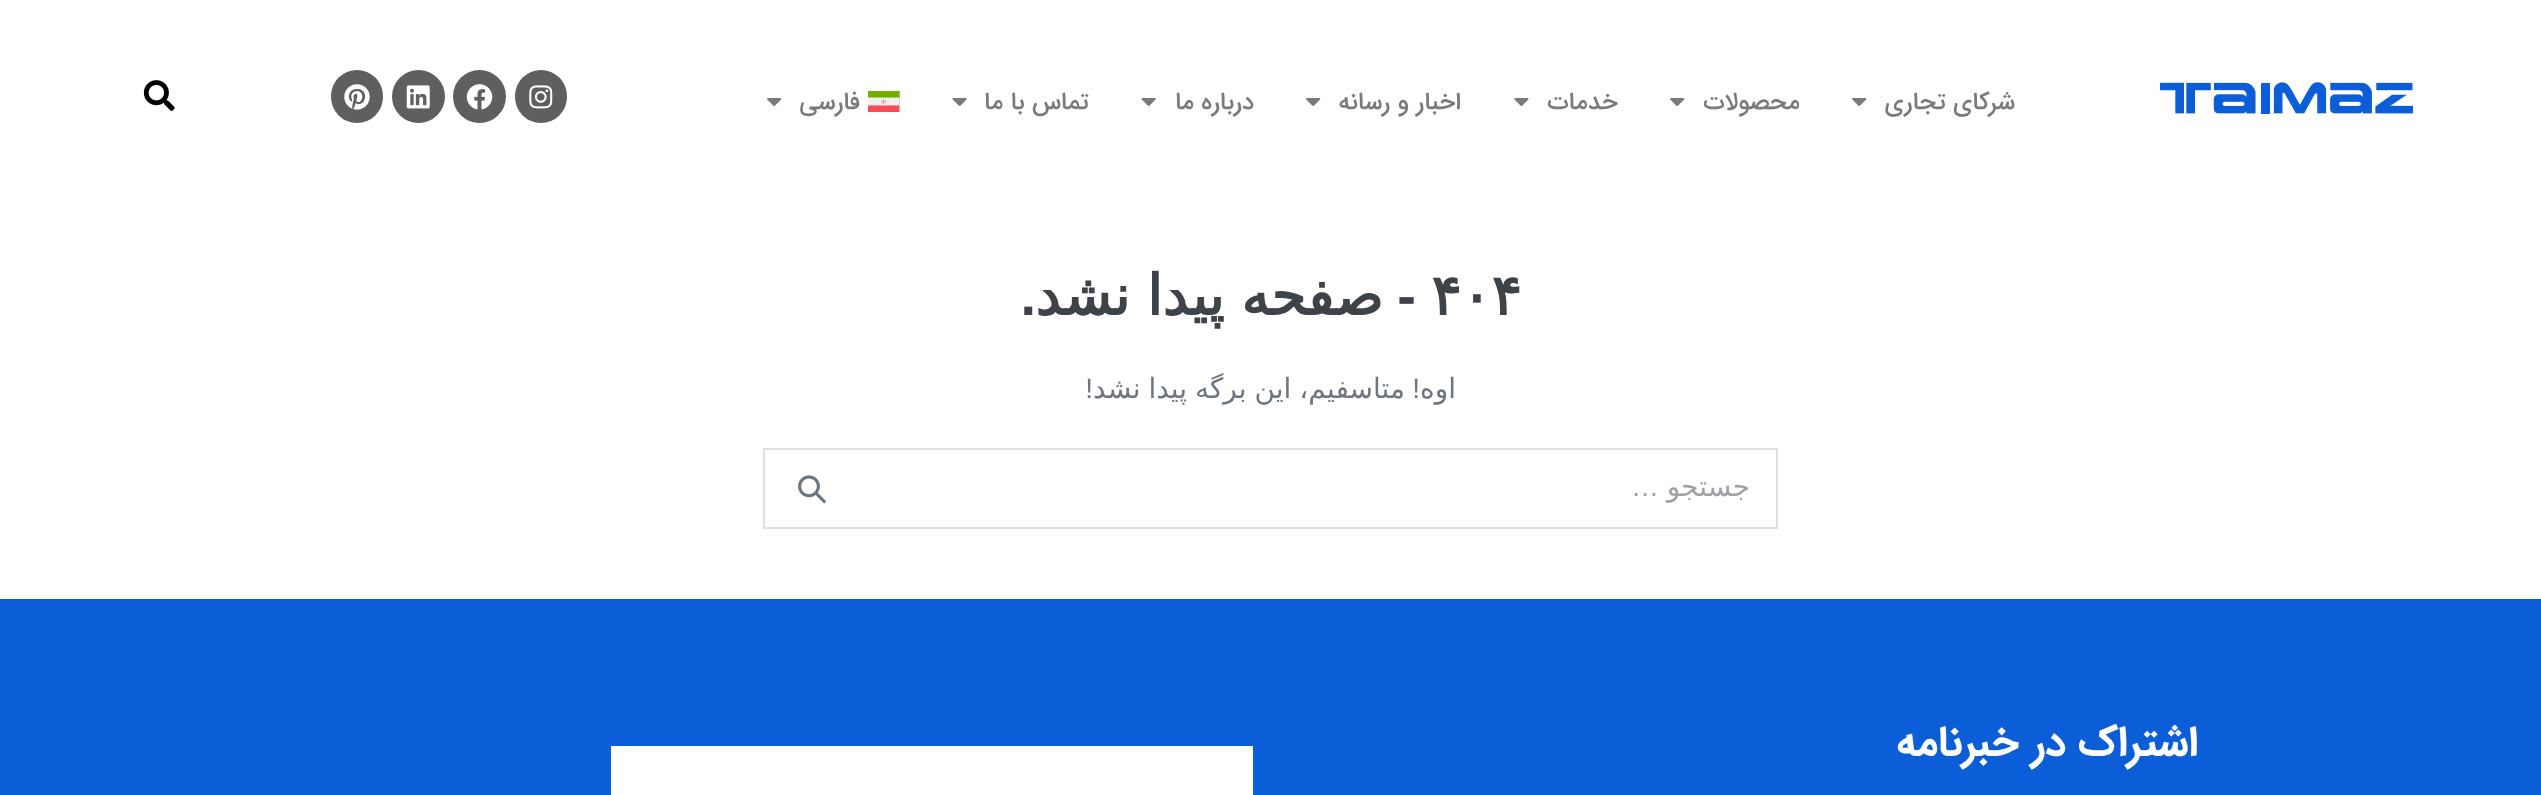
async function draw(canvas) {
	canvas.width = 2541;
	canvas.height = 795;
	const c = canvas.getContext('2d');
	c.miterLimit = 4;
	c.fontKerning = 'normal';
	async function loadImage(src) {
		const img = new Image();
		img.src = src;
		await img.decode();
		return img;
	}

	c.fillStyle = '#fff';
	c.fillRect(0, 0, 2541, 795);
	c.drawImage(await loadImage('img1.png'), 2160, 82, 253, 32);
	c.direction = 'rtl';
	c.font = '500 24.5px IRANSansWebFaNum';
	c.fillStyle = '#7a7a7a';
	c.fillText('شرکای تجاری', 2015, 109);
	c.drawImage(await loadImage('img2.png'), 1852, 98, 15, 8);
	c.fillText('محصولات', 1800, 109);
	c.drawImage(await loadImage('img2.png'), 1670, 98, 15, 8);
	c.fillText('خدمات', 1618, 109);
	c.drawImage(await loadImage('img3.png'), 1514, 98, 15, 8);
	c.fillText('اخبار و رسانه', 1461, 109);
	c.drawImage(await loadImage('img2.png'), 1306, 98, 15, 8);
	c.fillText('درباره ما', 1254, 109);
	c.drawImage(await loadImage('img4.png'), 1141, 98, 15, 8);
	c.fillText('تماس با ما', 1089, 109);
	c.drawImage(await loadImage('img4.png'), 952, 98, 15, 8);
	c.drawImage(await loadImage('img5.png'), 868, 91, 32, 21);
	c.fillText('فارسی', 860, 109);
	c.drawImage(await loadImage('img2.png'), 767, 98, 15, 8);
	c.fillStyle = '#5f5f5f';
	c.beginPath();
	c.roundRect(515, 70, 52, 53, 26);
	c.fill();
	c.drawImage(await loadImage('img6.png'), 529, 85, 24, 24);
	c.beginPath();
	c.arc(479.5, 96.5, 26.5, 0, 2 * Math.PI);
	c.fill();
	c.drawImage(await loadImage('img7.png'), 466, 84, 27, 26);
	c.beginPath();
	c.arc(418.5, 96.5, 26.5, 0, 2 * Math.PI);
	c.fill();
	c.drawImage(await loadImage('img8.png'), 406, 85, 24, 24);
	c.beginPath();
	c.roundRect(331, 70, 52, 53, 26);
	c.fill();
	c.drawImage(await loadImage('img9.png'), 344, 84, 26, 26);
	c.drawImage(await loadImage('img10.png'), 143, 80, 32, 31);
	c.direction = 'ltr';
	c.font = 'bold 56px DejaVu Sans';
	c.fillStyle = '#3e4349';
	c.fillText('۴۰۴', 1431, 315);
	c.direction = 'rtl';
	c.font = 'bold 56px Liberation Sans';
	c.fillText('-', 1416, 315);
	c.wordSpacing = '-1px';
	c.font = 'bold 56px DejaVu Sans';
	c.fillText('صفحه پیدا نشد', 1383, 315);
	c.wordSpacing = '0px';
	c.font = 'bold 56px Liberation Sans';
	c.fillText('.', 1036, 315);
	c.font = '28px DejaVu Sans';
	c.fillStyle = '#6d7680';
	c.fillText('اوه', 1456, 398);
	c.font = '28px Liberation Sans';
	c.fillText('!', 1420, 398);
	c.wordSpacing = '-1px';
	c.font = '28px DejaVu Sans';
	c.fillText('متاسفیم، این برگه پیدا نشد', 1405, 398);
	c.wordSpacing = '0px';
	c.font = '28px Liberation Sans';
	c.fillText('!', 1093, 398);
	c.strokeStyle = '#dedee5';
	c.lineWidth = 2;
	c.strokeRect(764, 449, 1013, 79);
	c.font = '28px DejaVu Sans';
	c.fillStyle = '#9fa1a4';
	c.fillText('جستجو', 1750, 496);
	c.font = '28px Liberation Sans';
	c.fillText('…', 1659, 496);
	c.drawImage(await loadImage('img11.png'), 798, 475, 28, 29);
	c.fillStyle = '#0b5ed7';
	c.fillRect(0, 599, 2541, 196);
	c.font = 'bold 42px IRANSansWebFaNum';
	c.fillStyle = '#fff';
	c.fillText('اشتراک در خبرنامه', 2198, 755);
	c.fillRect(611, 746, 642, 49);
}

draw(document.querySelector('canvas'));
